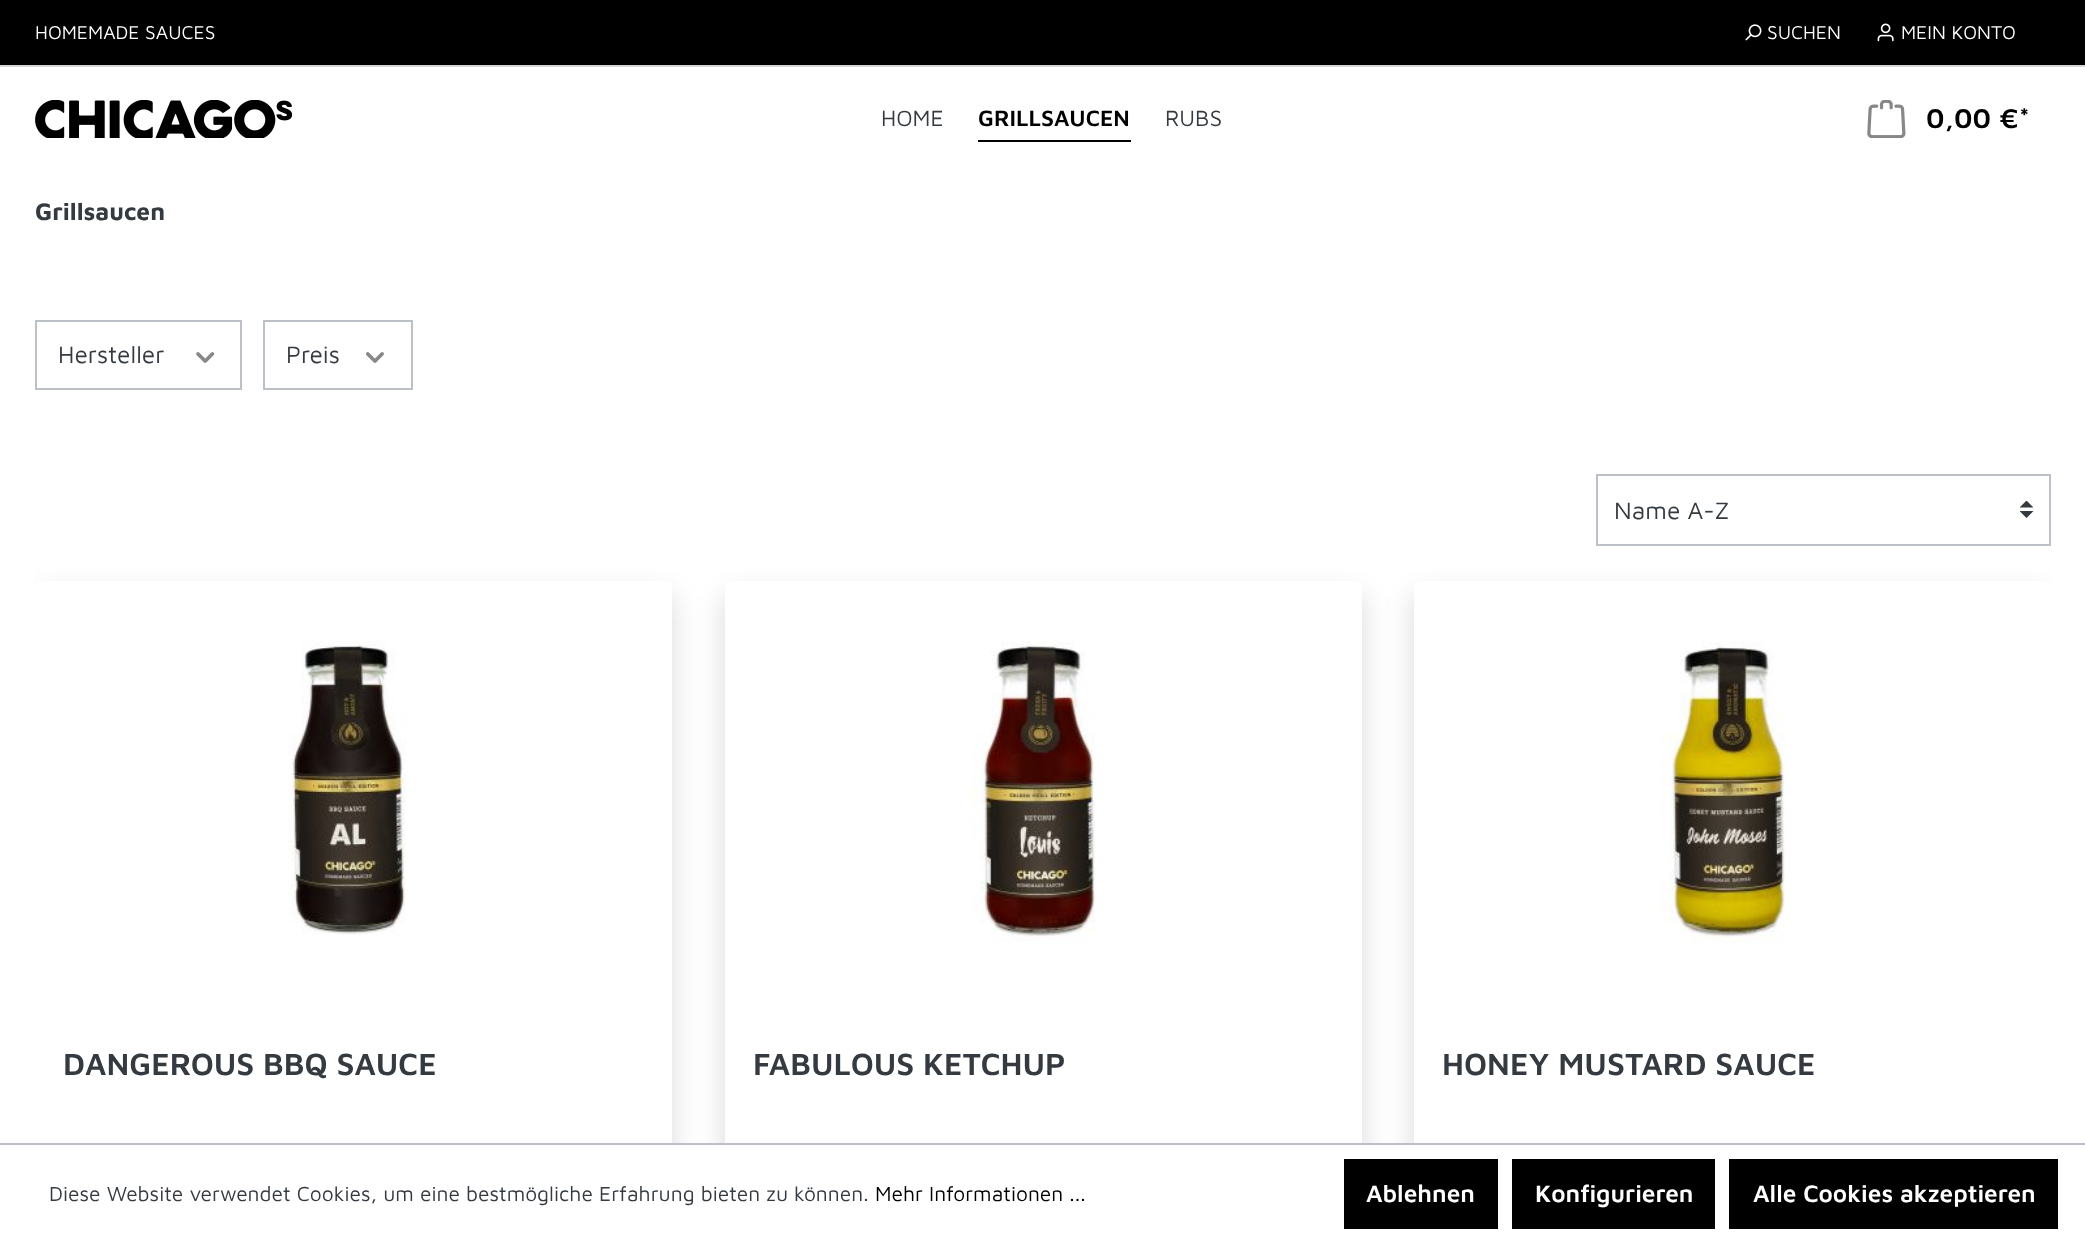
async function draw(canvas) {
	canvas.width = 2085;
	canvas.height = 1242;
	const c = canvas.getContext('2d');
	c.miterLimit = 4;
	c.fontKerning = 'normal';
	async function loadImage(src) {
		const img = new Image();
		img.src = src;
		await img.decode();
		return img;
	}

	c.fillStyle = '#fff';
	c.fillRect(0, 0, 2085, 1242);
	c.fillStyle = '#000';
	c.fillRect(0, 0, 2085, 65);
	c.fillStyle = '#d5d5d5';
	c.fillRect(0, 65, 2085, 2);
	c.font = '19.25px Maven Pro';
	c.fillStyle = '#fff';
	c.fillText('HOMEMADE SAUCES', 35, 39);
	c.drawImage(await loadImage('img1.png'), 1745, 24, 17, 17);
	c.fillText('SUCHEN', 1767, 39);
	c.drawImage(await loadImage('img2.png'), 1877, 23, 17, 19);
	c.fillText('MEIN KONTO', 1901, 39);
	c.drawImage(await loadImage('img3.png'), 35, 100, 257, 38);
	c.font = '22.75px Maven Pro';
	c.fillStyle = '#343a40';
	c.fillText('HOME', 881, 126);
	c.font = '600 22.75px Maven Pro';
	c.fillStyle = '#000';
	c.fillText('GRILLSAUCEN', 978, 126);
	c.fillRect(978, 140, 153, 2);
	c.font = '22.75px Maven Pro';
	c.fillStyle = '#343a40';
	c.fillText('RUBS', 1165, 126);
	c.drawImage(await loadImage('img4.png'), 1867, 100, 39, 38);
	c.font = '600 28px Maven Pro';
	c.fillStyle = '#000';
	c.fillText('0,00 €*', 1926, 128);
	c.font = 'bold 24.5px Maven Pro';
	c.fillStyle = '#343a40';
	c.fillText('Grillsaucen', 35, 220);
	c.strokeStyle = '#bcc1c7';
	c.lineWidth = 2;
	c.strokeRect(36, 321, 205, 68);
	c.font = '24.5px Maven Pro';
	c.fillText('Hersteller', 58, 363);
	c.drawImage(await loadImage('img5.png'), 196, 352, 19, 11);
	c.strokeRect(264, 321, 148, 68);
	c.fillText('Preis', 286, 363);
	c.drawImage(await loadImage('img6.png'), 366, 352, 18, 11);
	c.save();
	c.beginPath();
	c.rect(2020, 501, 14, 17);
	c.clip();
	c.beginPath();
	c.moveTo(2026.5, 500.5);
	c.lineTo(2019.5, 507.5);
	c.lineTo(2033.5, 507.5);
	c.closePath();
	c.moveTo(2026.5, 518);
	c.lineTo(2019.5, 511);
	c.lineTo(2033.5, 511);
	c.closePath();
	c.fill();
	c.restore();
	c.strokeRect(1597, 475, 453, 70);
	c.fillText('Name A-Z', 1614, 519);
	c.save();
	c.beginPath();
	c.rect(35, 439, 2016, 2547);
	c.clip();
	c.beginPath();
	c.moveTo(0, 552);
	c.lineTo(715, 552);
	c.lineTo(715, 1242);
	c.lineTo(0, 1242);
	c.closePath();
	c.moveTo(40, 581);
	c.lineTo(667, 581);
	c.bezierCurveTo(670, 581, 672, 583, 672, 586);
	c.lineTo(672, 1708);
	c.bezierCurveTo(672, 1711, 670, 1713, 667, 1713);
	c.lineTo(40, 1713);
	c.bezierCurveTo(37, 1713, 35, 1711, 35, 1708);
	c.lineTo(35, 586);
	c.bezierCurveTo(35, 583, 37, 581, 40, 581);
	c.closePath();
	c.clip('evenodd');
	c.fillStyle = '#00000026';
	c.filter = 'blur(14px)';
	c.beginPath();
	c.roundRect(35, 595, 637, 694, 5);
	c.fill();
	c.filter = 'none';
	c.restore();
	c.drawImage(await loadImage('img7.png'), 286, 641, 120, 294);
	c.font = '600 31.5px Maven Pro';
	c.fillText('DANGEROUS BBQ SAUCE', 63, 1075);
	c.fillStyle = '#00000026';
	c.filter = 'blur(14px)';
	c.beginPath();
	c.roundRect(725, 595, 637, 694, 5);
	c.fill();
	c.filter = 'none';
	c.fillStyle = '#fff';
	c.beginPath();
	c.roundRect(725, 581, 637, 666, 5);
	c.fill();
	c.drawImage(await loadImage('img8.png'), 970, 641, 126, 302);
	c.fillStyle = '#343a40';
	c.fillText('FABULOUS KETCHUP', 753, 1075);
	c.save();
	c.beginPath();
	c.rect(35, 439, 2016, 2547);
	c.clip();
	c.beginPath();
	c.moveTo(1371, 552);
	c.lineTo(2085, 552);
	c.lineTo(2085, 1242);
	c.lineTo(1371, 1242);
	c.closePath();
	c.moveTo(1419, 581);
	c.lineTo(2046, 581);
	c.bezierCurveTo(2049, 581, 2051, 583, 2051, 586);
	c.lineTo(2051, 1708);
	c.bezierCurveTo(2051, 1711, 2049, 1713, 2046, 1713);
	c.lineTo(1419, 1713);
	c.bezierCurveTo(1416, 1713, 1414, 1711, 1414, 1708);
	c.lineTo(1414, 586);
	c.bezierCurveTo(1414, 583, 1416, 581, 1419, 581);
	c.closePath();
	c.clip('evenodd');
	c.fillStyle = '#00000026';
	c.filter = 'blur(14px)';
	c.beginPath();
	c.roundRect(1414, 595, 637, 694, 5);
	c.fill();
	c.filter = 'none';
	c.restore();
	c.drawImage(await loadImage('img9.png'), 1659, 642, 127, 301);
	c.fillText('HONEY MUSTARD SAUCE', 1442, 1075);
	c.fillStyle = '#fff';
	c.fillRect(672, 1145, 742, 97);
	c.fillStyle = '#bcc1c7';
	c.fillRect(0, 1143, 2085, 2);
	c.font = '21px Maven Pro';
	c.fillStyle = '#343a40';
	c.fillText('Diese Website verwendet Cookies, um eine bestmögliche Erfahrung bieten zu können.', 49, 1201);
	c.fillStyle = '#000';
	c.fillText('Mehr Informationen ...', 875, 1201);
	c.fillRect(1344, 1159, 154, 70);
	c.font = '600 24.5px Maven Pro';
	c.fillStyle = '#fff';
	c.fillText('Ablehnen', 1366, 1202);
	c.fillStyle = '#000';
	c.fillRect(1512, 1159, 203, 70);
	c.fillStyle = '#fff';
	c.fillText('Konfigurieren', 1535, 1202);
	c.fillStyle = '#000';
	c.fillRect(1729, 1159, 329, 70);
	c.fillStyle = '#fff';
	c.fillText('Alle Cookies akzeptieren', 1753, 1202);
}

draw(document.querySelector('canvas'));
